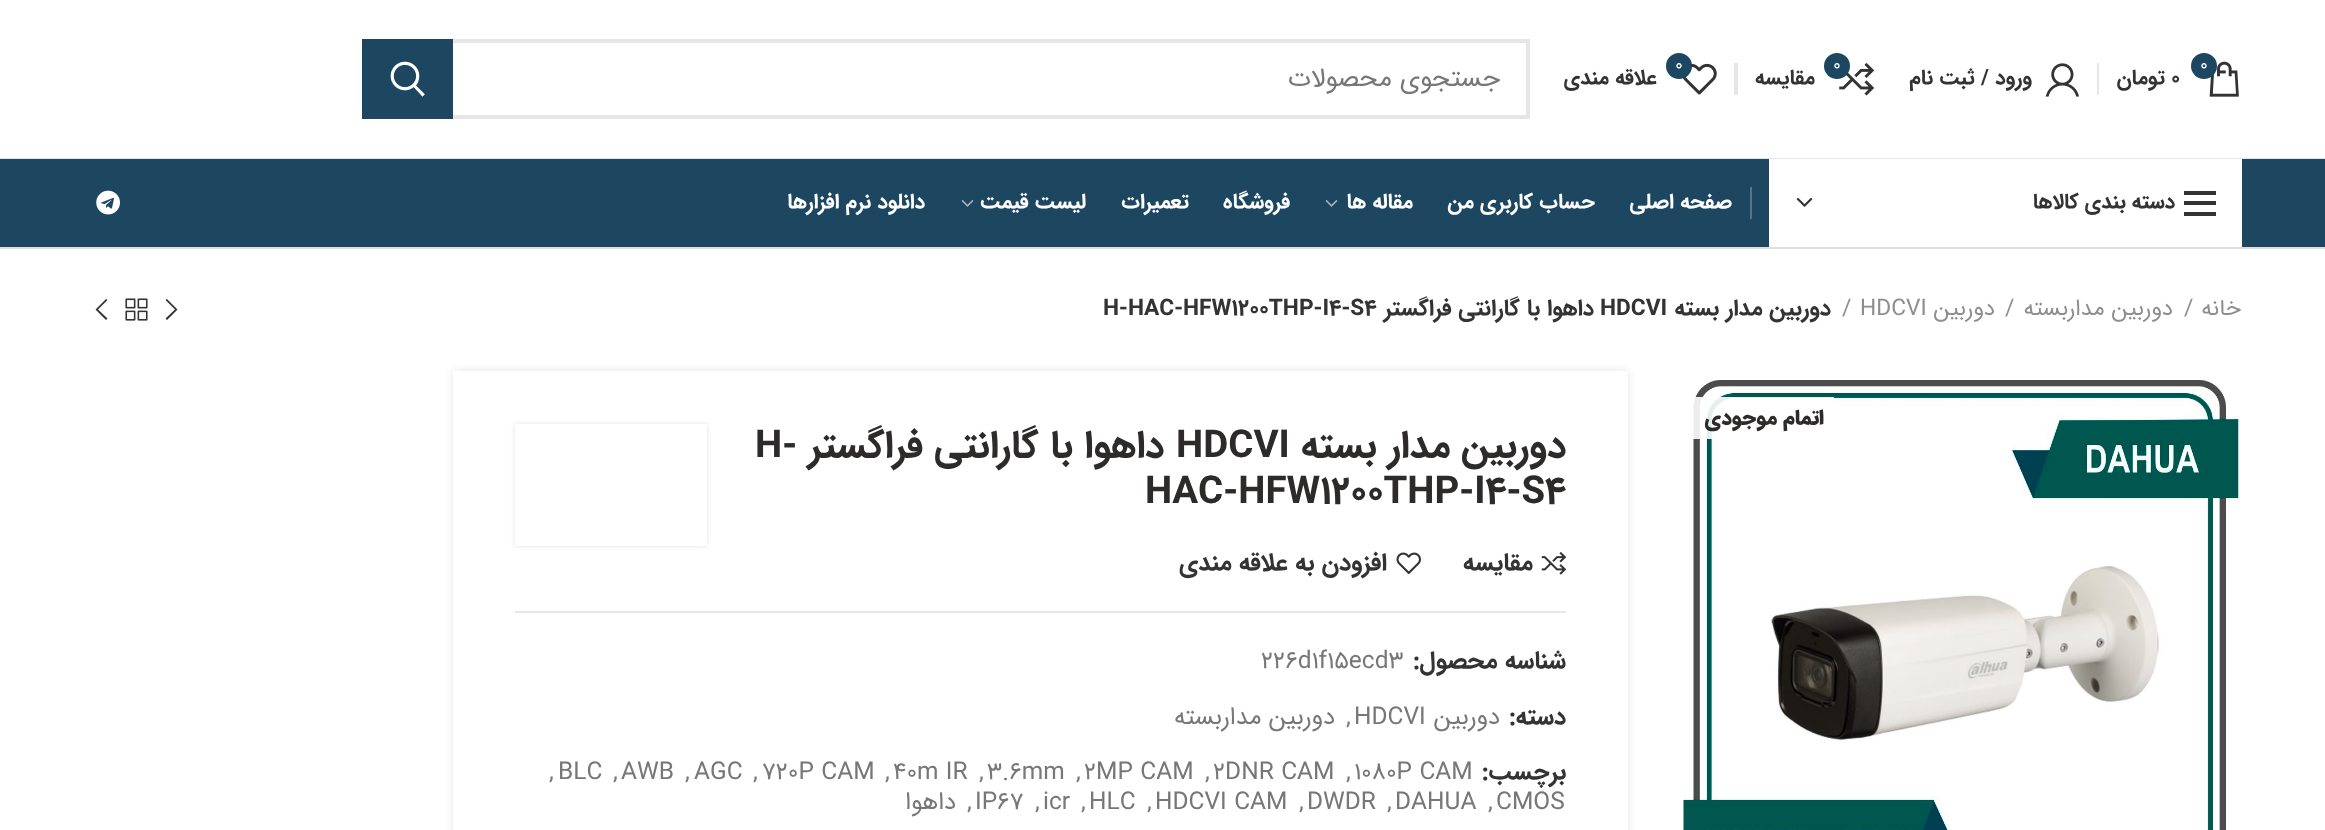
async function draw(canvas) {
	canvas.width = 2325;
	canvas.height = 830;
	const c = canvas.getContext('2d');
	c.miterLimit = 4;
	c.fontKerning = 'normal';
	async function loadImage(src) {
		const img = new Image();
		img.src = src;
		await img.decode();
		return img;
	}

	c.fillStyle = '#fff';
	c.fillRect(0, 0, 2325, 830);
	c.fillStyle = '#e6e6e6';
	c.fillRect(0, 158, 2325, 1);
	c.drawImage(await loadImage('img1.png'), 2209, 61, 30, 36);
	c.fillStyle = '#1d4660';
	c.beginPath();
	c.arc(2204, 66, 13, 0, 2 * Math.PI);
	c.fill();
	c.font = '18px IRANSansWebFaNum';
	c.fillStyle = '#fff';
	c.fillText('0', 2200, 70);
	c.font = 'bold 21px IRANSansWebFaNum';
	c.fillStyle = '#333';
	c.fillText('0', 2171, 84);
	c.direction = 'rtl';
	c.fillText('تومان', 2165, 84);
	c.fillStyle = '#e6e6e6';
	c.fillRect(2097, 63, 2, 32);
	c.drawImage(await loadImage('img2.png'), 2045, 63, 34, 34);
	c.fillStyle = '#333';
	c.fillText('ورود / ثبت نام', 2032, 84);
	c.drawImage(await loadImage('img3.png'), 1839, 62, 36, 34);
	c.fillStyle = '#1d4660';
	c.beginPath();
	c.arc(1837, 66, 13, 0, 2 * Math.PI);
	c.fill();
	c.direction = 'ltr';
	c.font = '18px IRANSansWebFaNum';
	c.fillStyle = '#fff';
	c.fillText('0', 1833, 70);
	c.direction = 'rtl';
	c.font = 'bold 21px IRANSansWebFaNum';
	c.fillStyle = '#333';
	c.fillText('مقایسه', 1815, 84);
	c.fillStyle = '#e6e6e6';
	c.fillRect(1734, 63, 4, 32);
	c.drawImage(await loadImage('img4.png'), 1683, 63, 34, 32);
	c.fillStyle = '#1d4660';
	c.beginPath();
	c.arc(1679, 66, 13, 0, 2 * Math.PI);
	c.fill();
	c.direction = 'ltr';
	c.font = '18px IRANSansWebFaNum';
	c.fillStyle = '#fff';
	c.fillText('0', 1675, 70);
	c.direction = 'rtl';
	c.font = 'bold 21px IRANSansWebFaNum';
	c.fillStyle = '#333';
	c.fillText('علاقه مندی', 1657, 84);
	c.strokeStyle = '#e6e6e6';
	c.lineWidth = 4;
	c.strokeRect(364, 41, 1164, 76);
	c.font = '26.25px IRANSansWebFaNum';
	c.fillStyle = '#777';
	c.fillText('جستجوی محصولات', 1500, 86);
	c.fillStyle = '#1d4660';
	c.fillRect(362, 39, 91, 80);
	c.drawImage(await loadImage('img5.png'), 390, 61, 35, 36);
	for (const [x, y, w, h, color] of [
		[0, 159, 2325, 88, '#1d4660'],
		[0, 247, 2325, 2, '#dedede'],
		[1769, 159, 473, 88, '#fff'],
		[2184, 201, 32, 4, '#333'],
		[2184, 191, 32, 4, '#333'],
		[2184, 212, 32, 4, '#333'],
	]) {
		c.fillStyle = color;
		c.fillRect(x, y, w, h);
	}
	c.letterSpacing = '0.75px';
	c.wordSpacing = '-1px';
	c.font = 'bold 21px IRANSansWebFaNum';
	c.fillText('دسته بندی کالاها', 2175, 208);
	c.drawImage(await loadImage('img6.png'), 1796, 197, 17, 10);
	c.fillStyle = '#567488';
	c.fillRect(1750, 187, 2, 32);
	c.letterSpacing = '0px';
	c.wordSpacing = '0px';
	c.fillStyle = '#fff';
	for (const [text, x, y] of [
		['صفحه اصلی', 1732, 208],
		['حساب کاربری من', 1595, 208],
		['مقاله ها', 1413, 208],
	]) {
		c.fillText(text, x, y);
	}
	c.drawImage(await loadImage('img7.png'), 1325, 200, 13, 7);
	for (const [text, x, y] of [
		['فروشگاه', 1290, 208],
		['تعمیرات', 1189, 208],
		['لیست قیمت', 1086, 208],
	]) {
		c.fillText(text, x, y);
	}
	c.drawImage(await loadImage('img7.png'), 961, 200, 13, 7);
	c.fillText('دانلود نرم افزارها', 925, 208);
	c.drawImage(await loadImage('img8.png'), 96, 190, 24, 25);
	c.font = '22.75px IRANSansWebFaNum';
	c.fillStyle = '#8e8e8e';
	c.fillText('خانه', 2241, 315);
	c.direction = 'ltr';
	c.fillText('/', 2184, 315);
	c.direction = 'rtl';
	c.fillText('دوربین مداربسته', 2173, 315);
	c.direction = 'ltr';
	c.fillText('/', 2005, 315);
	c.direction = 'rtl';
	c.fillText('دوربین', 1995, 315);
	c.direction = 'ltr';
	c.fillText('HDCVI', 1860, 315);
	c.fillText('/', 1842, 315);
	c.direction = 'rtl';
	c.font = 'bold 22.75px IRANSansWebFaNum';
	c.fillStyle = '#333';
	c.fillText('دوربین مدار بسته', 1831, 315);
	c.direction = 'ltr';
	c.fillText('HDCVI', 1600, 315);
	c.direction = 'rtl';
	c.fillText('داهوا با گارانتی فراگستر', 1594, 315);
	c.direction = 'ltr';
	c.fillText('H-HAC-HFW1200THP-I4-S4', 1103, 315);
	c.beginPath();
	c.moveTo(167, 299);
	c.lineTo(177.5, 309.5);
	c.lineTo(167, 320);
	c.lineTo(165.5, 318.5);
	c.lineTo(175, 309.5);
	c.lineTo(165.5, 300);
	c.closePath();
	c.fill();
	c.drawImage(await loadImage('img9.png'), 125, 298, 23, 23);
	c.beginPath();
	c.moveTo(107.5, 300);
	c.lineTo(98, 309.5);
	c.lineTo(107.5, 318.5);
	c.lineTo(106, 320);
	c.lineTo(95.5, 309.5);
	c.lineTo(106, 299);
	c.closePath();
	c.fill();
	c.drawImage(await loadImage('img10.png'), 1683, 380, 556, 450);
	c.fillStyle = '#ffffffe6';
	c.fillRect(1692, 397, 142, 42);
	c.letterSpacing = '0.75px';
	c.wordSpacing = '-1px';
	c.direction = 'rtl';
	c.font = '900 21px IRANSansWebFaNum';
	c.fillStyle = '#2d2a2a';
	c.fillText('اتمام موجودی', 1824, 424);
	c.fillStyle = '#0000001a';
	c.filter = 'blur(4.5px)';
	c.beginPath();
	c.rect(453, 371, 1175, 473);
	c.fill();
	c.filter = 'none';
	c.fillStyle = '#fff';
	c.fillRect(453, 371, 1175, 459);
	c.letterSpacing = '0px';
	c.wordSpacing = '0px';
	c.font = 'bold 38.5px IRANSansWebFaNum';
	c.fillStyle = '#2d2a2a';
	c.fillText('دوربین مدار بسته', 1566, 457);
	c.direction = 'ltr';
	c.fillText('HDCVI', 1176, 457);
	c.direction = 'rtl';
	c.fillText('داهوا با گارانتی فراگستر', 1164, 457);
	c.direction = 'ltr';
	c.fillText('H-', 755, 457);
	c.fillText('HAC-HFW1200THP-I4-S4', 1145, 503);
	c.save();
	c.beginPath();
	c.moveTo(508, 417);
	c.lineTo(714, 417);
	c.lineTo(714, 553);
	c.lineTo(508, 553);
	c.closePath();
	c.moveTo(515, 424);
	c.lineTo(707, 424);
	c.lineTo(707, 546);
	c.lineTo(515, 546);
	c.closePath();
	c.clip('evenodd');
	c.fillStyle = '#0000001f';
	c.filter = 'blur(2px)';
	c.beginPath();
	c.rect(515, 424, 192, 122);
	c.fill();
	c.filter = 'none';
	c.restore();
	c.drawImage(await loadImage('img11.png'), 1541, 551, 26, 24);
	c.direction = 'rtl';
	c.font = 'bold 24.5px IRANSansWebFaNum';
	c.fillStyle = '#333';
	c.fillText('مقایسه', 1533, 570);
	c.drawImage(await loadImage('img12.png'), 1396, 552, 25, 22);
	c.fillText('افزودن به علاقه مندی', 1387, 570);
	c.fillStyle = '#e6e6e6';
	c.fillRect(515, 611, 1051, 2);
	c.fillStyle = '#333';
	c.fillText('شناسه محصول:', 1566, 668);
	c.direction = 'ltr';
	c.font = '24.5px IRANSansWebFaNum';
	c.fillStyle = '#777';
	c.fillText('226d1f15ecd3', 1261, 668);
	c.direction = 'rtl';
	c.font = 'bold 24.5px IRANSansWebFaNum';
	c.fillStyle = '#333';
	c.fillText('دسته:', 1566, 724);
	c.font = '24.5px IRANSansWebFaNum';
	c.fillStyle = '#777';
	c.fillText('دوربین', 1500, 724);
	c.direction = 'ltr';
	c.fillText('HDCVI', 1354, 724);
	c.fillText(',', 1346, 724);
	c.direction = 'rtl';
	c.fillText('دوربین مداربسته', 1335, 724);
	c.font = 'bold 24.5px IRANSansWebFaNum';
	c.fillStyle = '#333';
	c.fillText('برچسب:', 1566, 779);
	c.direction = 'ltr';
	c.font = '24.5px IRANSansWebFaNum';
	c.fillStyle = '#777';
	for (const [text, x, y] of [
		['1080P CAM', 1354, 779],
		[',', 1346, 779],
		['2DNR CAM', 1213, 779],
		[',', 1205, 779],
		['2MP CAM', 1084, 779],
		[',', 1076, 779],
		['3.6mm', 987, 779],
		[',', 979, 779],
		['40m IR', 893, 779],
		[',', 885, 779],
		['720P CAM', 762, 779],
		[',', 753, 779],
		['AGC', 694, 779],
		[',', 685, 779],
		['AWB', 621, 779],
		[',', 613, 779],
		['BLC', 558, 779],
		[',', 549, 779],
		['CMOS', 1496, 809],
		[',', 1488, 809],
		['DAHUA', 1395, 809],
		[',', 1387, 809],
		['DWDR', 1307, 809],
		[',', 1299, 809],
		['HDCVI CAM', 1155, 809],
		[',', 1147, 809],
		['HLC', 1089, 809],
		[',', 1081, 809],
		['icr', 1043, 809],
		[',', 1035, 809],
		['IP67', 975, 809],
		[',', 967, 809],
	]) {
		c.fillText(text, x, y);
	}
	c.direction = 'rtl';
	c.fillText('داهوا', 956, 809);
}

draw(document.querySelector('canvas'));
